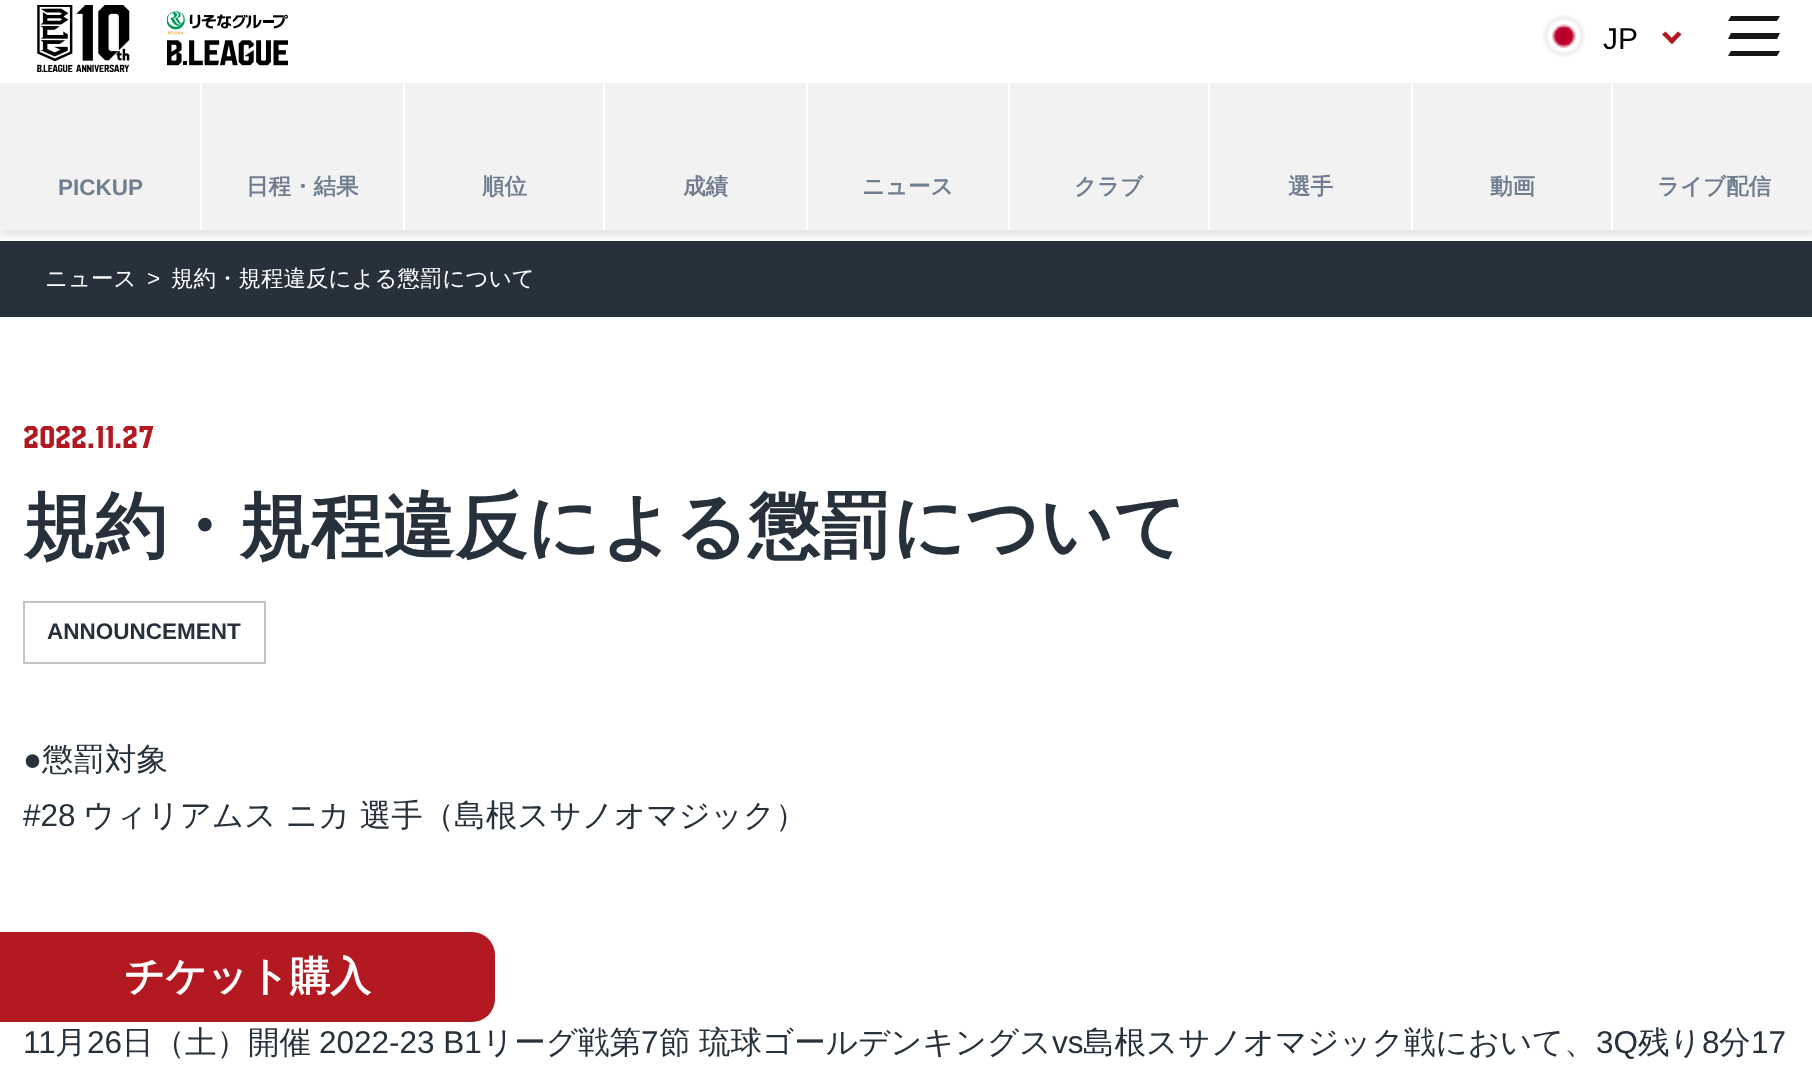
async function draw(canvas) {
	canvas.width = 1812;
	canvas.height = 1089;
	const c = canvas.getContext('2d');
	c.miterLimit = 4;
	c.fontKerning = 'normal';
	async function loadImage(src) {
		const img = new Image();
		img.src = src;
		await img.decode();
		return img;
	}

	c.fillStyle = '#fff';
	c.fillRect(0, 0, 1812, 1089);
	c.drawImage(await loadImage('img1.png'), 37, 5, 93, 67);
	c.drawImage(await loadImage('img2.png'), 167, 11, 121, 55);
	c.drawImage(await loadImage('img3.png'), 1542, 15, 43, 42);
	c.font = '30px Liberation Sans';
	c.fillStyle = '#000';
	c.fillText('JP', 1603, 49);
	c.fillStyle = '#b21920';
	c.beginPath();
	c.moveTo(1678, 31.5);
	c.lineTo(1681.5, 34.5);
	c.lineTo(1672, 44);
	c.lineTo(1668.5, 41);
	c.closePath();
	c.fill();
	c.beginPath();
	c.moveTo(1665.5, 31.5);
	c.lineTo(1675, 41);
	c.lineTo(1672, 44);
	c.lineTo(1662, 34.5);
	c.closePath();
	c.fill();
	c.fillStyle = '#171717';
	c.beginPath();
	c.moveTo(1731, 16);
	c.lineTo(1780, 16);
	c.lineTo(1777, 21);
	c.lineTo(1728, 21);
	c.closePath();
	c.moveTo(1731, 33);
	c.lineTo(1780, 33);
	c.lineTo(1777, 39);
	c.lineTo(1728, 39);
	c.closePath();
	c.moveTo(1731, 51);
	c.lineTo(1780, 51);
	c.lineTo(1777, 56);
	c.lineTo(1728, 56);
	c.closePath();
	c.fill();
	c.fillStyle = '#27313c';
	c.fillRect(0, 241, 1812, 76);
	c.fillStyle = '#0000001a';
	c.filter = 'blur(3.5px)';
	c.beginPath();
	c.rect(0, 90, 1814, 146);
	c.fill();
	c.filter = 'none';
	c.fillStyle = '#f2f2f2';
	c.fillRect(0, 83, 200, 147);
	c.font = 'bold 22.5px Liberation Sans';
	c.fillStyle = '#6f7e90';
	c.fillText('PICKUP', 58, 195);
	c.fillStyle = '#f2f2f2';
	c.fillRect(202, 83, 201, 147);
	c.fillStyle = '#fff';
	c.fillRect(200, 83, 2, 147);
	c.font = 'bold 22.5px WenQuanYi Zen Hei';
	c.fillStyle = '#6f7e90';
	c.fillText('日程・結果', 246, 194);
	c.fillStyle = '#f2f2f2';
	c.fillRect(405, 83, 198, 147);
	c.fillStyle = '#fff';
	c.fillRect(403, 83, 2, 147);
	c.fillStyle = '#6f7e90';
	c.fillText('順位', 482, 194);
	c.fillStyle = '#f2f2f2';
	c.fillRect(605, 83, 201, 147);
	c.fillStyle = '#fff';
	c.fillRect(603, 83, 2, 147);
	c.fillStyle = '#6f7e90';
	c.fillText('成績', 683, 194);
	c.fillStyle = '#f2f2f2';
	c.fillRect(808, 83, 200, 147);
	c.fillStyle = '#fff';
	c.fillRect(806, 83, 2, 147);
	c.fillStyle = '#6f7e90';
	c.fillText('ニュース', 862, 194);
	c.fillStyle = '#f2f2f2';
	c.fillRect(1010, 83, 198, 147);
	c.fillStyle = '#fff';
	c.fillRect(1008, 83, 2, 147);
	c.fillStyle = '#6f7e90';
	c.fillText('クラブ', 1074, 194);
	c.fillStyle = '#f2f2f2';
	c.fillRect(1210, 83, 201, 147);
	c.fillStyle = '#fff';
	c.fillRect(1208, 83, 2, 147);
	c.fillStyle = '#6f7e90';
	c.fillText('選手', 1288, 194);
	c.fillStyle = '#f2f2f2';
	c.fillRect(1413, 83, 198, 147);
	c.fillStyle = '#fff';
	c.fillRect(1411, 83, 2, 147);
	c.fillStyle = '#6f7e90';
	c.fillText('動画', 1490, 194);
	c.fillStyle = '#f2f2f2';
	c.fillRect(1613, 83, 199, 147);
	c.fillStyle = '#fff';
	c.fillRect(1611, 83, 2, 147);
	c.fillStyle = '#6f7e90';
	c.fillText('ライブ配信', 1657, 194);
	c.font = '500 22.5px WenQuanYi Zen Hei';
	c.fillStyle = '#fff';
	c.fillText('ニュース', 45, 286);
	c.font = '22.5px Liberation Sans';
	c.fillText('>', 147, 286);
	c.font = '500 22.5px WenQuanYi Zen Hei';
	c.fillText('規約・規程違反による懲罰について', 171, 286);
	c.font = 'bold 31.5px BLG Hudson';
	c.fillStyle = '#b21920';
	c.fillText('2022.11.27', 23, 448);
	c.font = 'bold 72px WenQuanYi Zen Hei';
	c.fillStyle = '#27313c';
	c.fillText('規約・規程違反による懲罰について', 23, 551);
	c.strokeStyle = '#c4c4c4';
	c.lineWidth = 2;
	c.strokeRect(24, 602, 241, 61);
	c.font = 'bold 22.5px Liberation Sans';
	c.fillText('ANNOUNCEMENT', 47, 639);
	c.font = '31.5px Liberation Sans';
	c.fillText('●', 23, 770);
	c.font = '500 31.5px WenQuanYi Zen Hei';
	c.fillText('懲罰対象', 42, 770);
	c.font = '31.5px Liberation Sans';
	c.fillText('#28', 23, 826);
	c.font = '500 31.5px WenQuanYi Zen Hei';
	c.fillText('ウィリアムス ニカ 選手（島根スサノオマジック）', 83, 826);
	c.font = '31.5px Liberation Sans';
	c.fillText('11', 23, 1053);
	c.font = '500 31.5px WenQuanYi Zen Hei';
	c.fillText('月', 55, 1053);
	c.font = '31.5px Liberation Sans';
	c.fillText('26', 87, 1053);
	c.font = '500 31.5px WenQuanYi Zen Hei';
	c.fillText('日（土）開催', 122, 1053);
	c.font = '31.5px Liberation Sans';
	c.fillText('2022-23 B1', 319, 1053);
	c.font = '500 31.5px WenQuanYi Zen Hei';
	c.fillText('リーグ戦第', 482, 1053);
	c.font = '31.5px Liberation Sans';
	c.fillText('7', 641, 1053);
	c.font = '500 31.5px WenQuanYi Zen Hei';
	c.fillText('節', 659, 1053);
	c.fillText('琉球ゴールデンキングス', 699, 1053);
	c.font = '31.5px Liberation Sans';
	c.fillText('vs', 1052, 1053);
	c.font = '500 31.5px WenQuanYi Zen Hei';
	c.fillText('島根スサノオマジック戦において、', 1083, 1053);
	c.font = '31.5px Liberation Sans';
	c.fillText('3Q', 1596, 1053);
	c.font = '500 31.5px WenQuanYi Zen Hei';
	c.fillText('残り', 1638, 1053);
	c.font = '31.5px Liberation Sans';
	c.fillText('8', 1702, 1053);
	c.font = '500 31.5px WenQuanYi Zen Hei';
	c.fillText('分', 1719, 1053);
	c.font = '31.5px Liberation Sans';
	c.fillText('17', 1751, 1053);
	c.fillStyle = '#b21920';
	c.beginPath();
	c.roundRect(0, 932, 495, 90, [0, 23, 23, 0]);
	c.fill();
	c.font = 'bold 40.5px WenQuanYi Zen Hei';
	c.fillStyle = '#fff';
	c.fillText('チケット購入', 124, 990);
}

draw(document.querySelector('canvas'));
